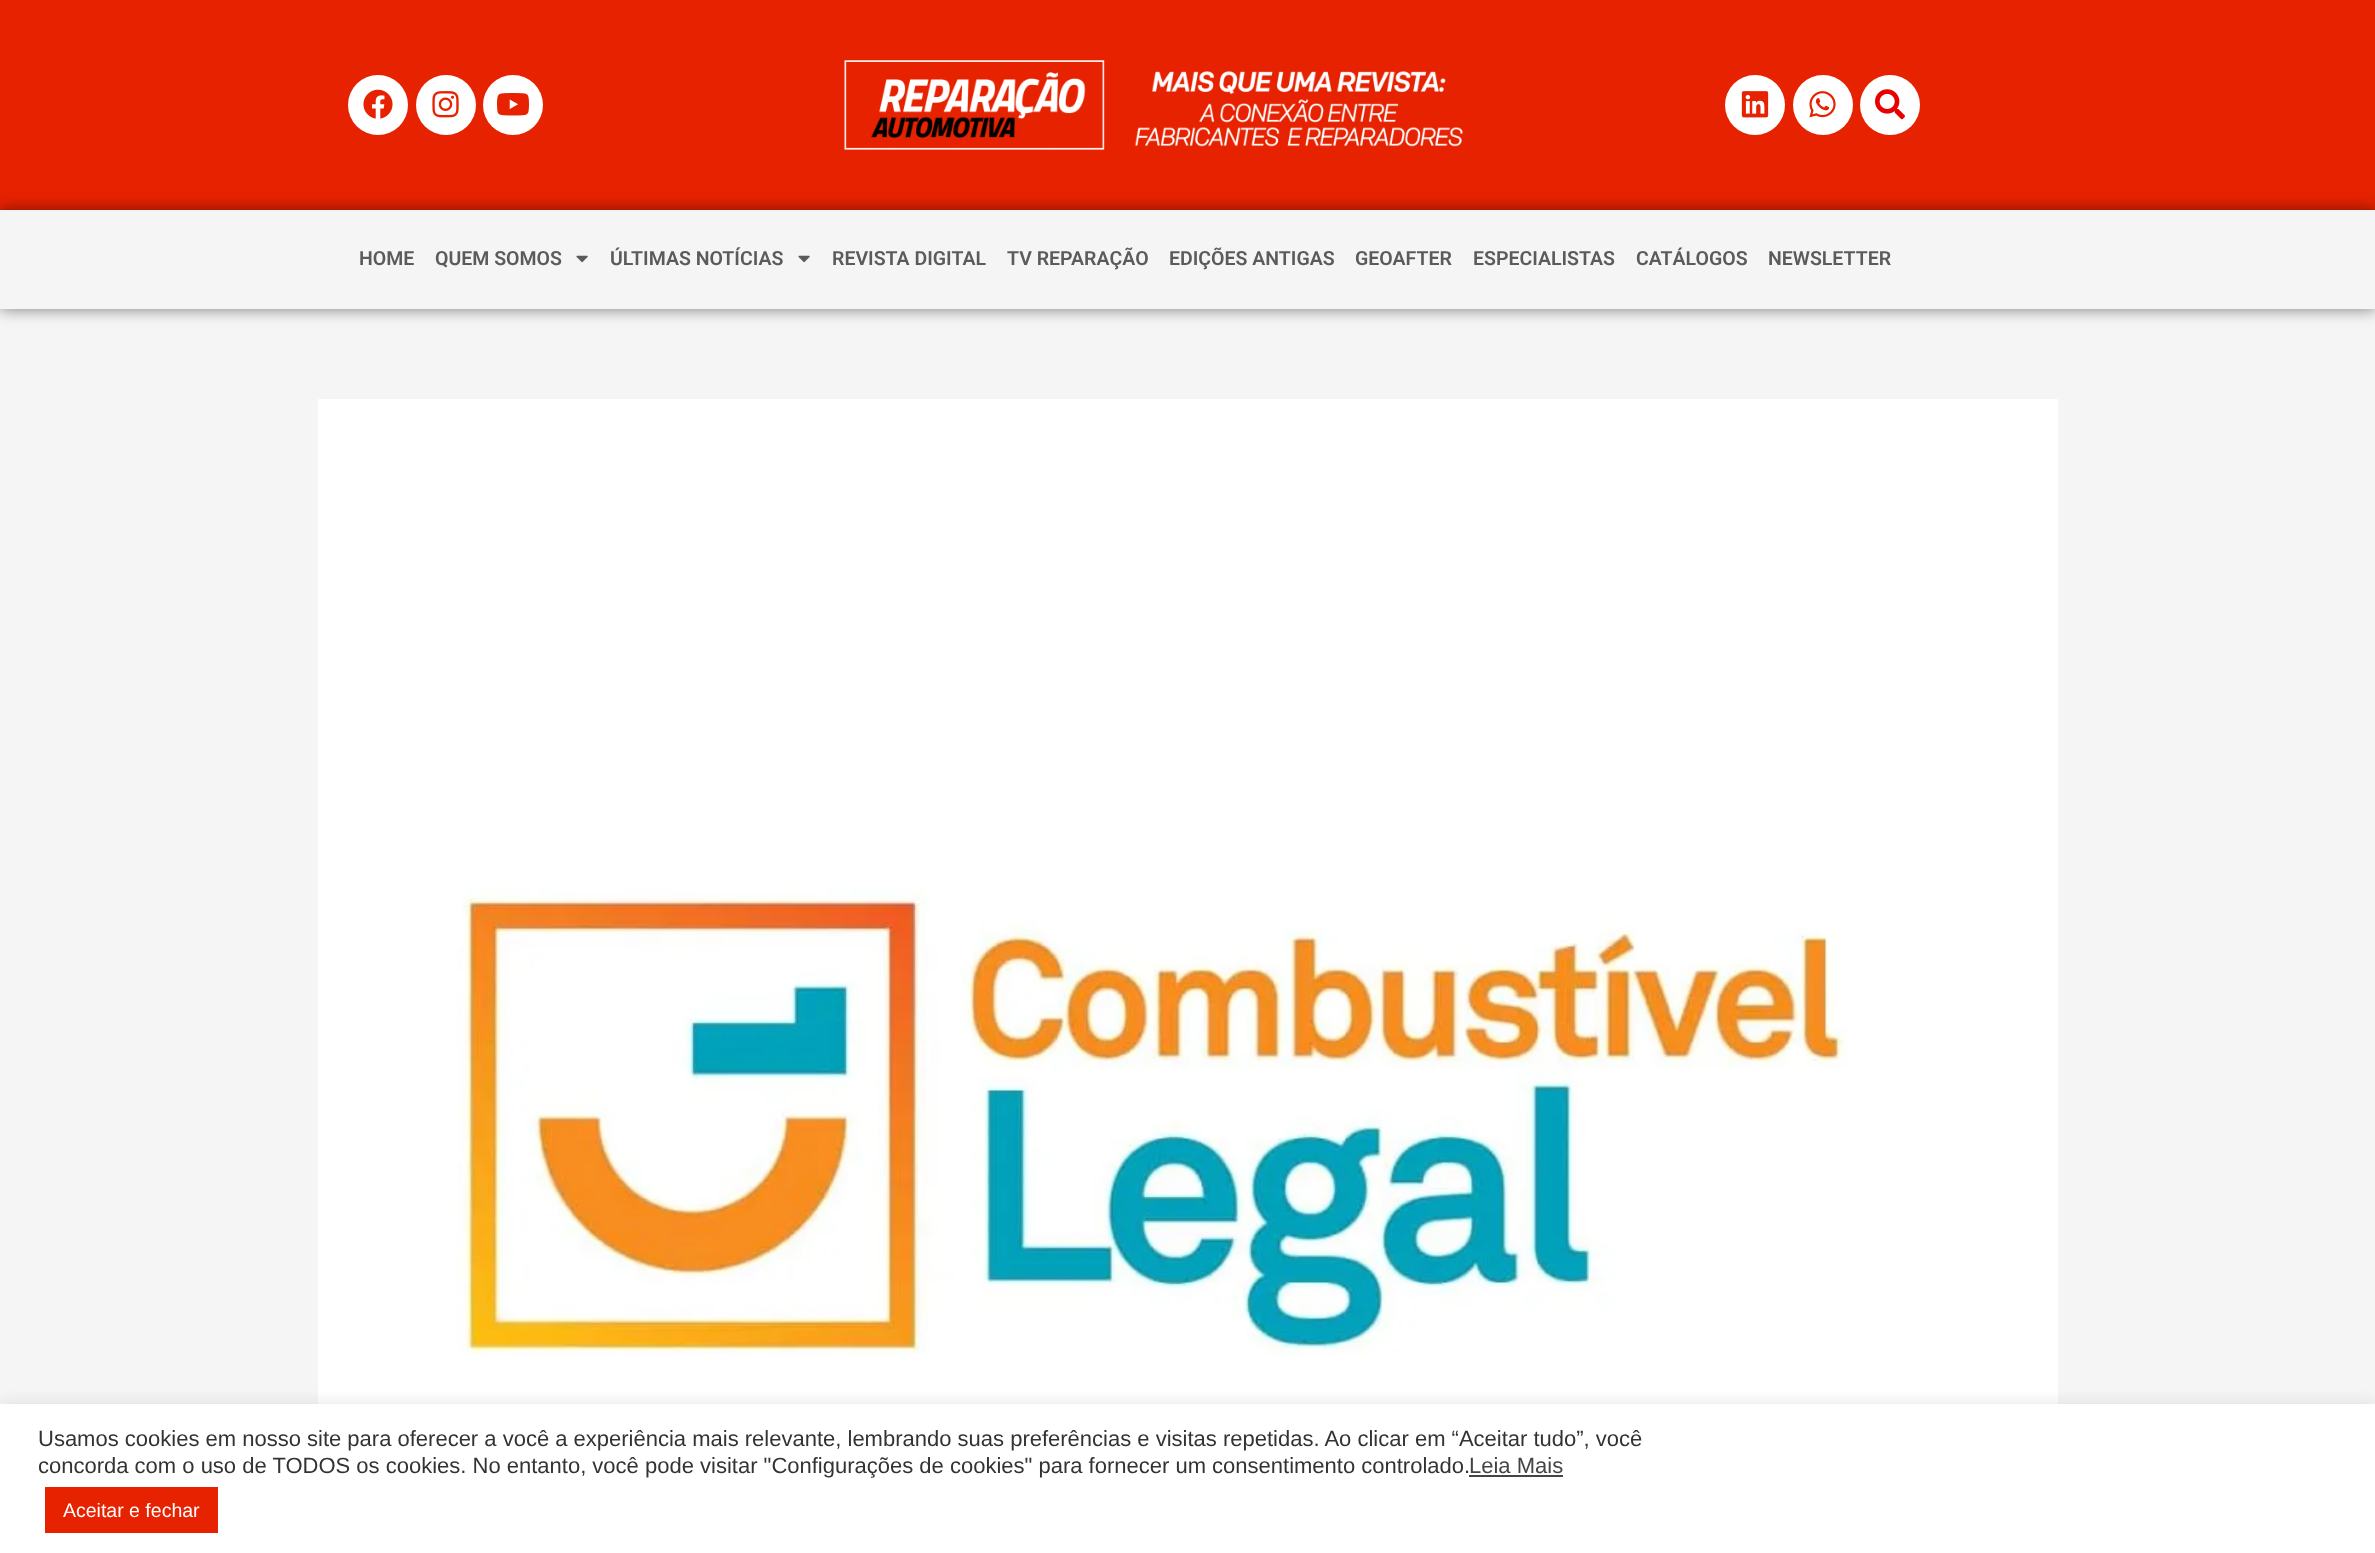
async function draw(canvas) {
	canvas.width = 2375;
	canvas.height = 1553;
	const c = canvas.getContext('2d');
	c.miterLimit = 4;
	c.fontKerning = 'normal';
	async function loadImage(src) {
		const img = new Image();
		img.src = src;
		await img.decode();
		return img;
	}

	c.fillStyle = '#f5f5f5';
	c.fillRect(0, 0, 2375, 1553);
	c.fillStyle = '#e72200';
	c.fillRect(0, 0, 2375, 210);
	c.fillStyle = '#fff';
	c.beginPath();
	c.arc(378, 105, 30, 0, 2 * Math.PI);
	c.fill();
	c.drawImage(await loadImage('img1.png'), 363, 89, 30, 30);
	c.beginPath();
	c.arc(446, 105, 30, 0, 2 * Math.PI);
	c.fill();
	c.drawImage(await loadImage('img2.png'), 432, 91, 27, 27);
	c.beginPath();
	c.arc(513, 105, 30, 0, 2 * Math.PI);
	c.fill();
	c.drawImage(await loadImage('img3.png'), 497, 93, 32, 23);
	c.drawImage(await loadImage('img4.png'), 844, 60, 619, 90);
	c.beginPath();
	c.arc(1755, 105, 30, 0, 2 * Math.PI);
	c.fill();
	c.drawImage(await loadImage('img5.png'), 1741, 91, 28, 27);
	c.beginPath();
	c.arc(1823, 105, 30, 0, 2 * Math.PI);
	c.fill();
	c.drawImage(await loadImage('img6.png'), 1809, 91, 27, 27);
	c.beginPath();
	c.arc(1890, 105, 30, 0, 2 * Math.PI);
	c.fill();
	c.drawImage(await loadImage('img7.png'), 1875, 89, 30, 31);
	c.save();
	c.beginPath();
	c.moveTo(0, 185);
	c.lineTo(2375, 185);
	c.lineTo(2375, 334);
	c.lineTo(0, 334);
	c.closePath();
	c.moveTo(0, 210);
	c.lineTo(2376, 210);
	c.lineTo(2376, 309);
	c.lineTo(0, 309);
	c.closePath();
	c.clip('evenodd');
	c.fillStyle = '#00000080';
	c.filter = 'blur(8px)';
	c.beginPath();
	c.rect(0, 210, 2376, 99);
	c.fill();
	c.filter = 'none';
	c.restore();
	c.font = '600 19.5px Roboto';
	c.fillStyle = '#5b5b5b';
	c.fillText('HOME', 359, 265);
	c.fillText('QUEM SOMOS', 435, 265);
	c.drawImage(await loadImage('img8.png'), 576, 255, 12, 8);
	c.fillText('ÚLTIMAS NOTÍCIAS', 610, 265);
	c.drawImage(await loadImage('img8.png'), 798, 255, 12, 8);
	for (const [text, x, y] of [
		['REVISTA DIGITAL', 832, 265],
		['TV REPARAÇÃO', 1007, 265],
		['EDIÇÕES ANTIGAS', 1169, 265],
		['GEOAFTER', 1355, 265],
		['ESPECIALISTAS', 1473, 265],
		['CATÁLOGOS', 1636, 265],
		['NEWSLETTER', 1768, 265],
	]) {
		c.fillText(text, x, y);
	}
	c.fillStyle = '#fff';
	c.fillRect(318, 399, 1740, 1005);
	c.drawImage(await loadImage('img9.png'), 457, 887, 1392, 468);
	c.fillStyle = '#acabab4d';
	c.filter = 'blur(7.5px)';
	c.beginPath();
	c.rect(0, 1403, 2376, 150);
	c.fill();
	c.filter = 'none';
	c.fillStyle = '#fff';
	c.fillRect(0, 1404, 2375, 149);
	c.font = '22px Liberation Sans';
	c.fillStyle = '#333';
	c.fillText('Usamos cookies em nosso site para oferecer a você a experiência mais relevante, lembrando suas preferências e visitas repetidas. Ao clicar em “Aceitar tudo”, você', 38, 1446);
	c.fillText('concorda com o uso de TODOS os cookies. No entanto, você pode visitar "Configurações de cookies" para fornecer um consentimento controlado.', 38, 1473);
	c.fillStyle = '#444';
	c.fillText('Leia Mais', 1469, 1473);
	c.fillRect(1469, 1475, 94, 2);
	c.fillStyle = '#e72200';
	c.fillRect(45, 1487, 173, 46);
	c.font = '19.5px Liberation Sans';
	c.fillStyle = '#fff';
	c.fillText('Aceitar e fechar', 63, 1517);
}

draw(document.querySelector('canvas'));
